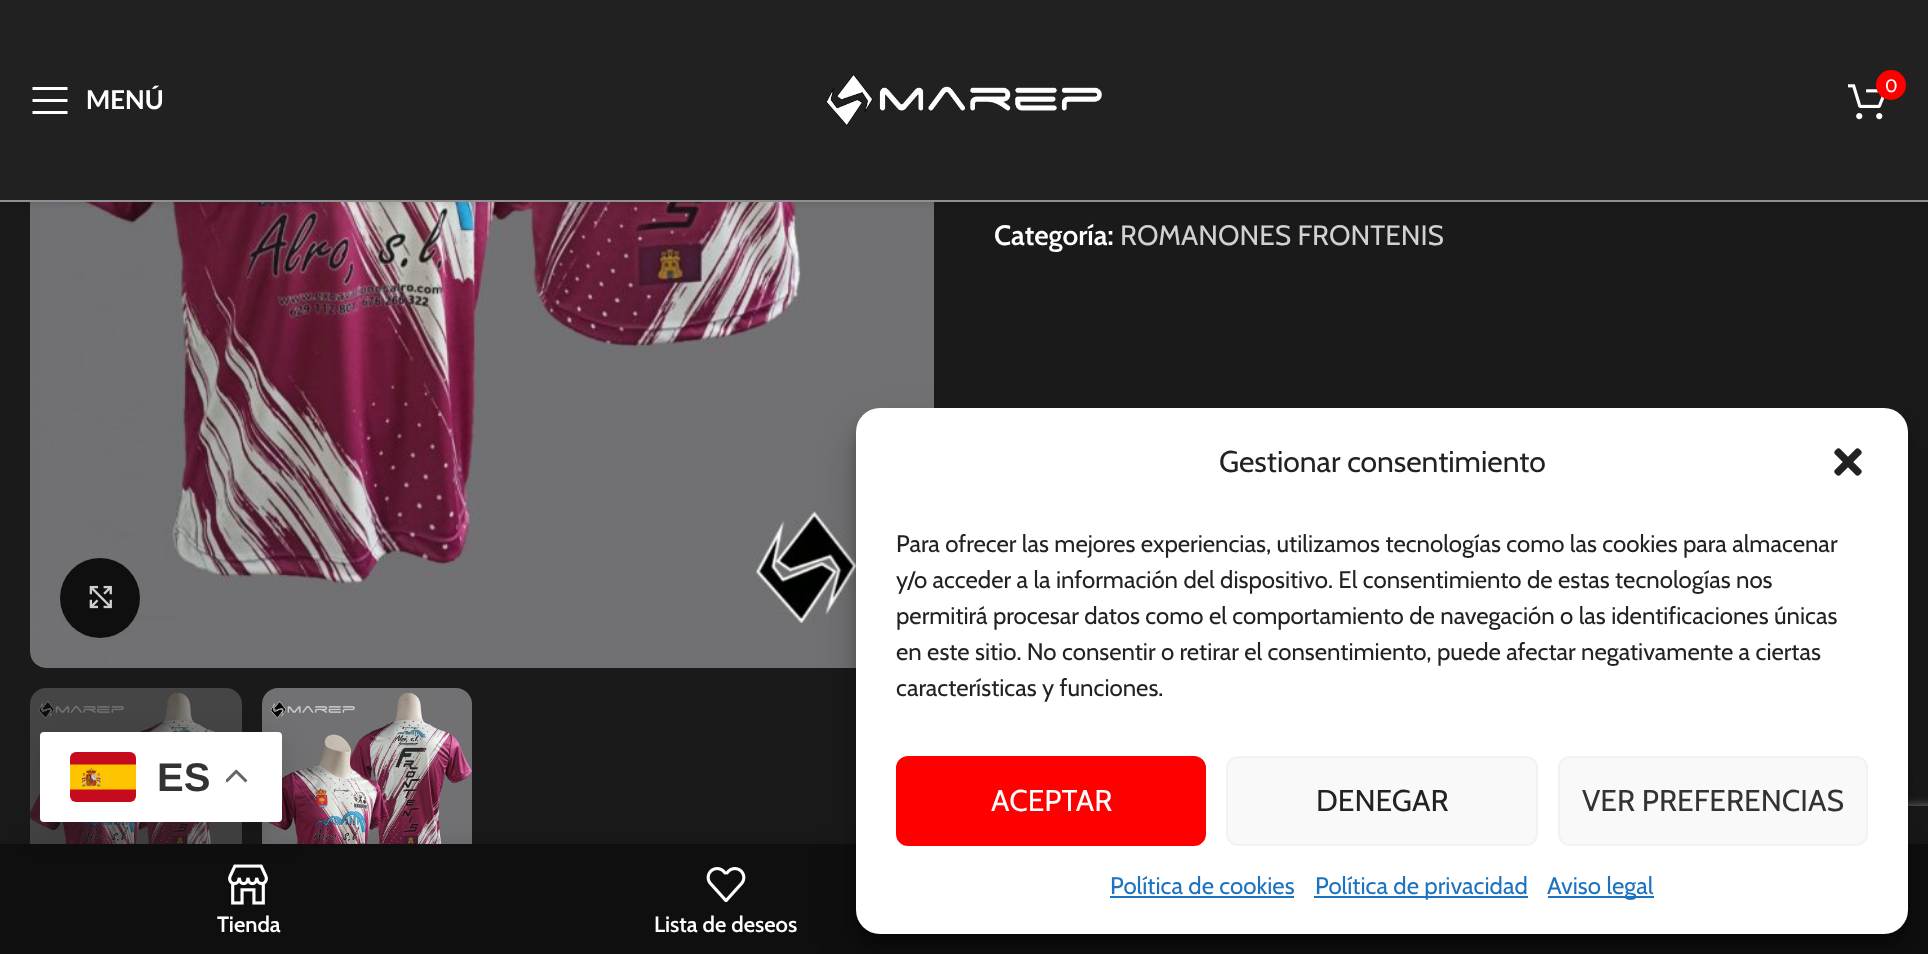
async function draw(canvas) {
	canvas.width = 1928;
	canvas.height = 954;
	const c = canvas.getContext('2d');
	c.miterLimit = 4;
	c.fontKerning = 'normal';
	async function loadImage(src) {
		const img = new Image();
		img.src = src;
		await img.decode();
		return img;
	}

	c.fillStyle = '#1a1a1a';
	c.fillRect(0, 0, 1928, 954);
	c.drawImage(await loadImage('img3.png'), 30, 202, 904, 466);
	c.fillStyle = '#0000001a';
	c.filter = 'blur(3px)';
	c.beginPath();
	c.rect(0, 2, 1928, 202);
	c.fill();
	c.filter = 'none';
	c.fillStyle = '#212121';
	c.fillRect(0, 0, 1928, 200);
	c.fillStyle = '#909090';
	c.fillRect(0, 200, 1928, 2);
	c.fillStyle = '#fff';
	c.beginPath();
	c.moveTo(32.5, 90);
	c.lineTo(67.5, 90);
	c.lineTo(67.5, 87);
	c.lineTo(32.5, 87);
	c.closePath();
	c.moveTo(32.5, 102);
	c.lineTo(67.5, 102);
	c.lineTo(67.5, 99);
	c.lineTo(32.5, 99);
	c.closePath();
	c.moveTo(32.5, 114);
	c.lineTo(67.5, 114);
	c.lineTo(67.5, 111);
	c.lineTo(32.5, 111);
	c.closePath();
	c.fill();
	c.font = 'bold 26px Lato';
	c.fillText('MENÚ', 86, 109);
	c.drawImage(await loadImage('img1.png'), 826, 74, 276, 52);
	c.drawImage(await loadImage('img2.png'), 1848, 84, 37, 36);
	c.fillStyle = '#f00';
	c.beginPath();
	c.arc(1891, 85, 15, 0, 2 * Math.PI);
	c.fill();
	c.font = '18px Cabin';
	c.fillStyle = '#fff';
	c.fillText('0', 1885, 92);
	c.fillStyle = '#0f0f0f';
	c.beginPath();
	c.arc(100, 598, 40, 0, 2 * Math.PI);
	c.fill();
	c.drawImage(await loadImage('img4.png'), 89, 585, 23, 24);
	c.drawImage(await loadImage('img5.png'), 30, 688, 212, 156);
	c.drawImage(await loadImage('img6.png'), 262, 688, 210, 156);
	c.font = '600 28px Cabin';
	c.fillStyle = '#fff';
	c.fillText('Categoría:', 994, 245);
	c.font = '28px Cabin';
	c.fillStyle = '#d1d1d1';
	c.fillText('ROMANONES FRONTENIS', 1120, 245);
	c.fillStyle = '#0000001f';
	c.filter = 'blur(9px)';
	c.beginPath();
	c.rect(0, 844, 1928, 110);
	c.fill();
	c.filter = 'none';
	c.save();
	c.beginPath();
	c.rect(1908, 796, 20, 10);
	c.clip();
	c.fillStyle = '#808080';
	c.filter = 'blur(5px)';
	c.beginPath();
	c.roundRect(1788, 806, 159, 120, 4);
	c.fill();
	c.filter = 'none';
	c.restore();
	c.fillStyle = '#0f0f0f';
	c.fillRect(0, 844, 1928, 110);
	c.drawImage(await loadImage('img10.png'), 228, 864, 40, 41);
	c.fillStyle = '#00000026';
	c.filter = 'blur(15px)';
	c.beginPath();
	c.roundRect(40, 742, 242, 90, 4);
	c.fill();
	c.filter = 'none';
	c.fillStyle = '#fff';
	c.beginPath();
	c.roundRect(40, 732, 242, 90, 4);
	c.fill();
	c.drawImage(await loadImage('img7.png'), 70, 752, 66, 50);
	c.font = 'bold 40px Liberation Sans';
	c.fillStyle = '#333';
	c.fillText('ES', 157, 791);
	c.drawImage(await loadImage('img8.png'), 226, 769, 22, 14);
	c.fillStyle = '#0000003b';
	c.filter = 'blur(6px)';
	c.beginPath();
	c.roundRect(856, 420, 1052, 526, 24);
	c.fill();
	c.filter = 'none';
	c.fillStyle = '#00000030';
	c.filter = 'blur(20px)';
	c.beginPath();
	c.roundRect(856, 428, 1052, 526, 24);
	c.fill();
	c.filter = 'none';
	c.fillStyle = '#0000002b';
	c.filter = 'blur(5px)';
	c.beginPath();
	c.roundRect(1824, 740, 80, 80, 40);
	c.fill();
	c.filter = 'none';
	c.fillStyle = '#fff';
	c.beginPath();
	c.roundRect(856, 408, 1052, 526, 24);
	c.fill();
	c.font = '30px Cabin';
	c.fillStyle = '#222';
	c.fillText('Gestionar consentimiento', 1219, 472);
	c.drawImage(await loadImage('img9.png'), 1834, 448, 28, 28);
	c.font = '24px Cabin';
	for (const [text, x, y] of [
		['Para ofrecer las mejores experiencias, utilizamos tecnologías como las cookies para almacenar', 896, 552],
		['y/o acceder a la información del dispositivo. El consentimiento de estas tecnologías nos', 896, 588],
		['permitirá procesar datos como el comportamiento de navegación o las identificaciones únicas', 896, 624],
		['en este sitio. No consentir o retirar el consentimiento, puede afectar negativamente a ciertas', 896, 660],
		['características y funciones.', 896, 696],
	]) {
		c.fillText(text, x, y);
	}
	c.fillStyle = '#f00';
	c.beginPath();
	c.roundRect(897, 757, 308, 88, 11);
	c.fill();
	c.strokeStyle = '#f00';
	c.lineWidth = 2;
	c.stroke();
	c.font = '30px Cabin';
	c.fillStyle = '#fff';
	c.fillText('ACEPTAR', 991, 811);
	c.fillStyle = '#f9f9f9';
	c.beginPath();
	c.roundRect(1227, 757, 310, 88, 11);
	c.fill();
	c.strokeStyle = '#f2f2f2';
	c.stroke();
	c.fillStyle = '#222';
	c.fillText('DENEGAR', 1316, 811);
	c.fillStyle = '#f9f9f9';
	c.beginPath();
	c.roundRect(1559, 757, 308, 88, 11);
	c.fill();
	c.stroke();
	c.fillStyle = '#333';
	c.fillText('VER PREFERENCIAS', 1582, 811);
	c.font = '24px Cabin';
	c.fillStyle = '#1e73be';
	c.fillText('Política de cookies', 1110, 894);
	c.fillRect(1110, 896, 184, 2);
	c.fillRect(1314, 896, 214, 2);
	c.fillText('Política de privacidad', 1315, 894);
	c.fillRect(1548, 896, 106, 2);
	c.fillText('Aviso legal', 1547, 894);
	c.font = '600 22px Cabin';
	c.fillStyle = '#fff';
	c.fillText('Tienda', 217, 932);
	c.drawImage(await loadImage('img11.png'), 706, 867, 40, 35);
	c.fillText('Lista de deseos', 654, 932);
}

draw(document.querySelector('canvas'));
